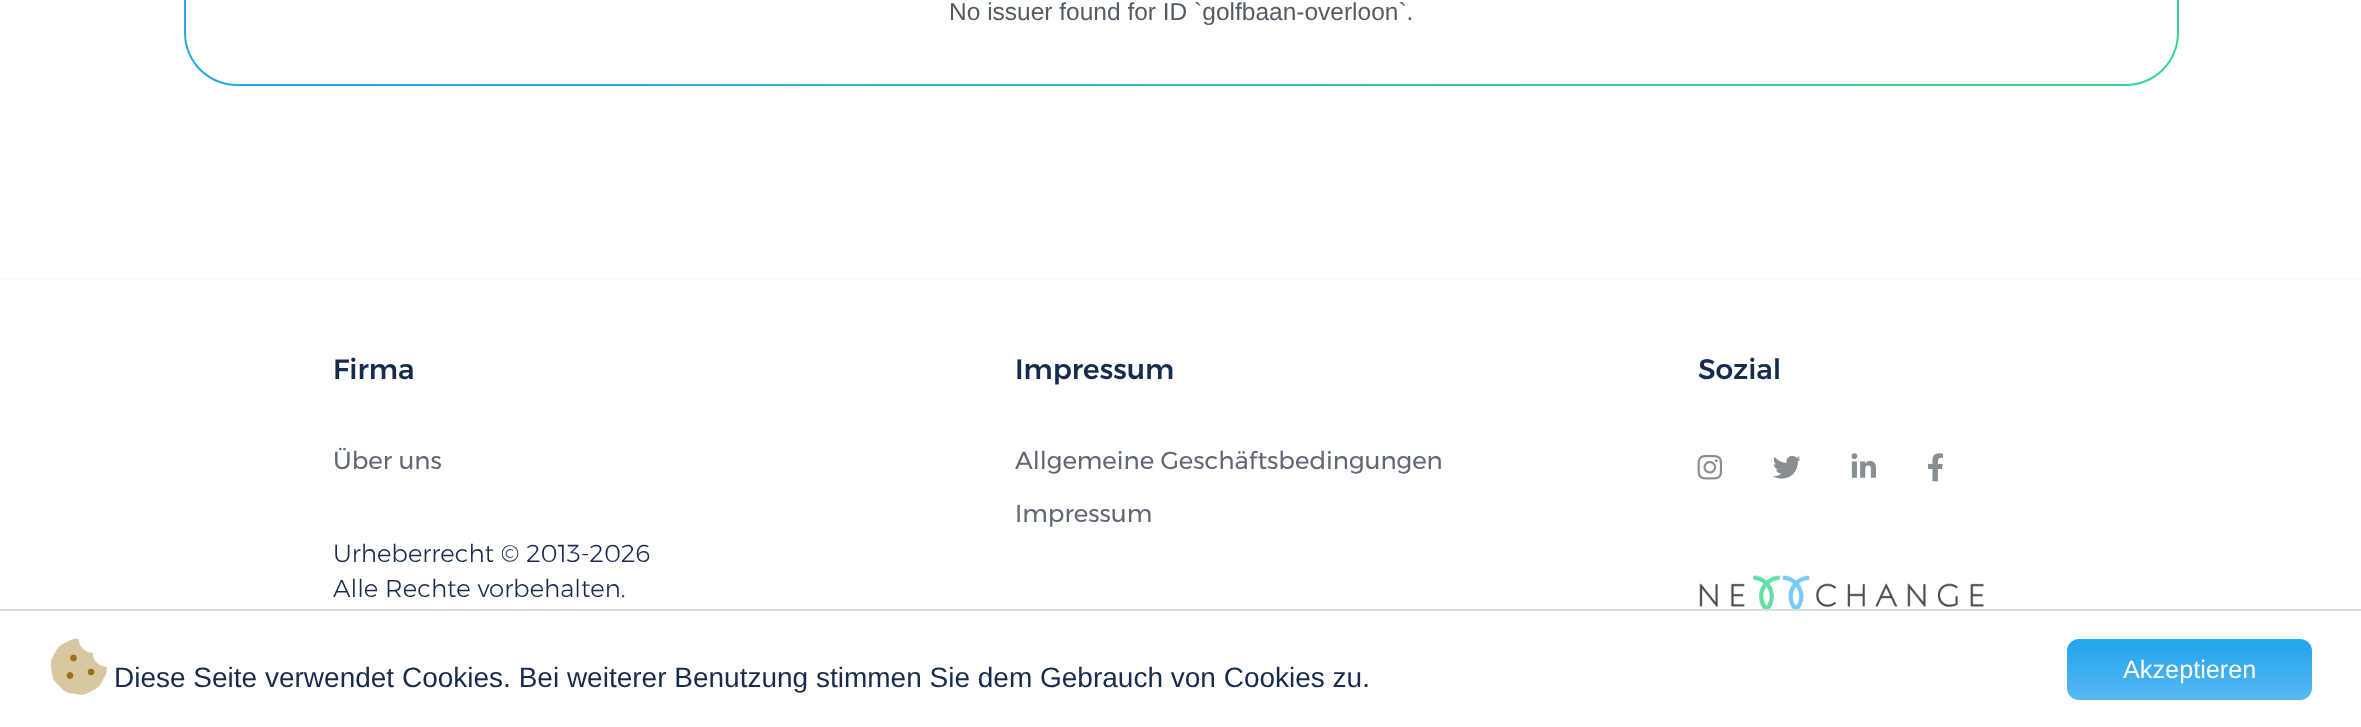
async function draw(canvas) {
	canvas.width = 2361;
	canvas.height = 727;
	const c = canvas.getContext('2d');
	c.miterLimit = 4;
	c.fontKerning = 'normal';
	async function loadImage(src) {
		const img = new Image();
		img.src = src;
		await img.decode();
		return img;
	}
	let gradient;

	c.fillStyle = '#fff';
	c.fillRect(0, 0, 2361, 727);
	gradient = c.createLinearGradient(836, -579, 1526, 502);
	gradient.addColorStop(0.19, '#27a5ed');
	gradient.addColorStop(0.87, '#37d68e');
	c.fillStyle = gradient;
	c.beginPath();
	c.roundRect(184, -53, 1995, 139, 53);
	c.fill();
	c.fillStyle = '#fff';
	c.beginPath();
	c.roundRect(186, -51, 1991, 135, 51);
	c.fill();
	c.font = '24.5px Liberation Sans';
	c.fillStyle = '#535c65';
	c.fillText('No issuer found for ID `golfbaan-overloon`.', 949, 20);
	c.fillStyle = '#f8f8f8';
	c.fillRect(0, 278, 2361, 2);
	c.font = '500 28px Montserrat';
	c.fillStyle = '#172b4d';
	c.fillText('Firma', 333, 379);
	c.font = '24.5px Montserrat';
	c.fillStyle = '#606875';
	c.fillText('Über uns', 333, 469);
	c.font = '300 24.5px Montserrat';
	c.fillStyle = '#172b4d';
	c.fillText('Urheberrecht © 2013-2026', 333, 562);
	c.fillText('Alle Rechte vorbehalten.', 333, 597);
	c.font = '500 28px Montserrat';
	c.fillText('Impressum', 1015, 379);
	c.font = '24.5px Montserrat';
	c.fillStyle = '#606875';
	c.fillText('Allgemeine Geschäftsbedingungen', 1015, 469);
	c.fillText('Impressum', 1015, 522);
	c.font = '500 28px Montserrat';
	c.fillStyle = '#172b4d';
	c.fillText('Sozial', 1698, 379);
	c.drawImage(await loadImage('img1.png'), 1697, 455, 26, 25);
	c.drawImage(await loadImage('img2.png'), 1773, 455, 28, 24);
	c.drawImage(await loadImage('img3.png'), 1851, 453, 25, 25);
	c.drawImage(await loadImage('img4.png'), 1928, 453, 15, 29);
	c.drawImage(await loadImage('img5.png'), 1699, 575, 285, 34);
	c.fillStyle = '#dadce0';
	c.fillRect(0, 609, 2361, 2);
	c.drawImage(await loadImage('img7.png'), 66, 654, 29, 25);
	c.drawImage(await loadImage('img6.png'), 50, 638, 57, 57);
	c.font = '28px Liberation Sans';
	c.fillStyle = '#172b4d';
	c.fillText('Diese Seite verwendet Cookies. Bei weiterer Benutzung stimmen Sie dem Gebrauch von Cookies zu.', 114, 687);
	gradient = c.createLinearGradient(2189, 639, 2189, 700);
	gradient.addColorStop(0.14, '#27a5ed');
	gradient.addColorStop(0.98, '#56b9f1');
	c.fillStyle = gradient;
	c.beginPath();
	c.roundRect(2067, 639, 245, 61, 12);
	c.fill();
	c.font = '25.25px Liberation Sans';
	c.fillStyle = '#fff';
	c.fillText('Akzeptieren', 2123, 678);
}

draw(document.querySelector('canvas'));
